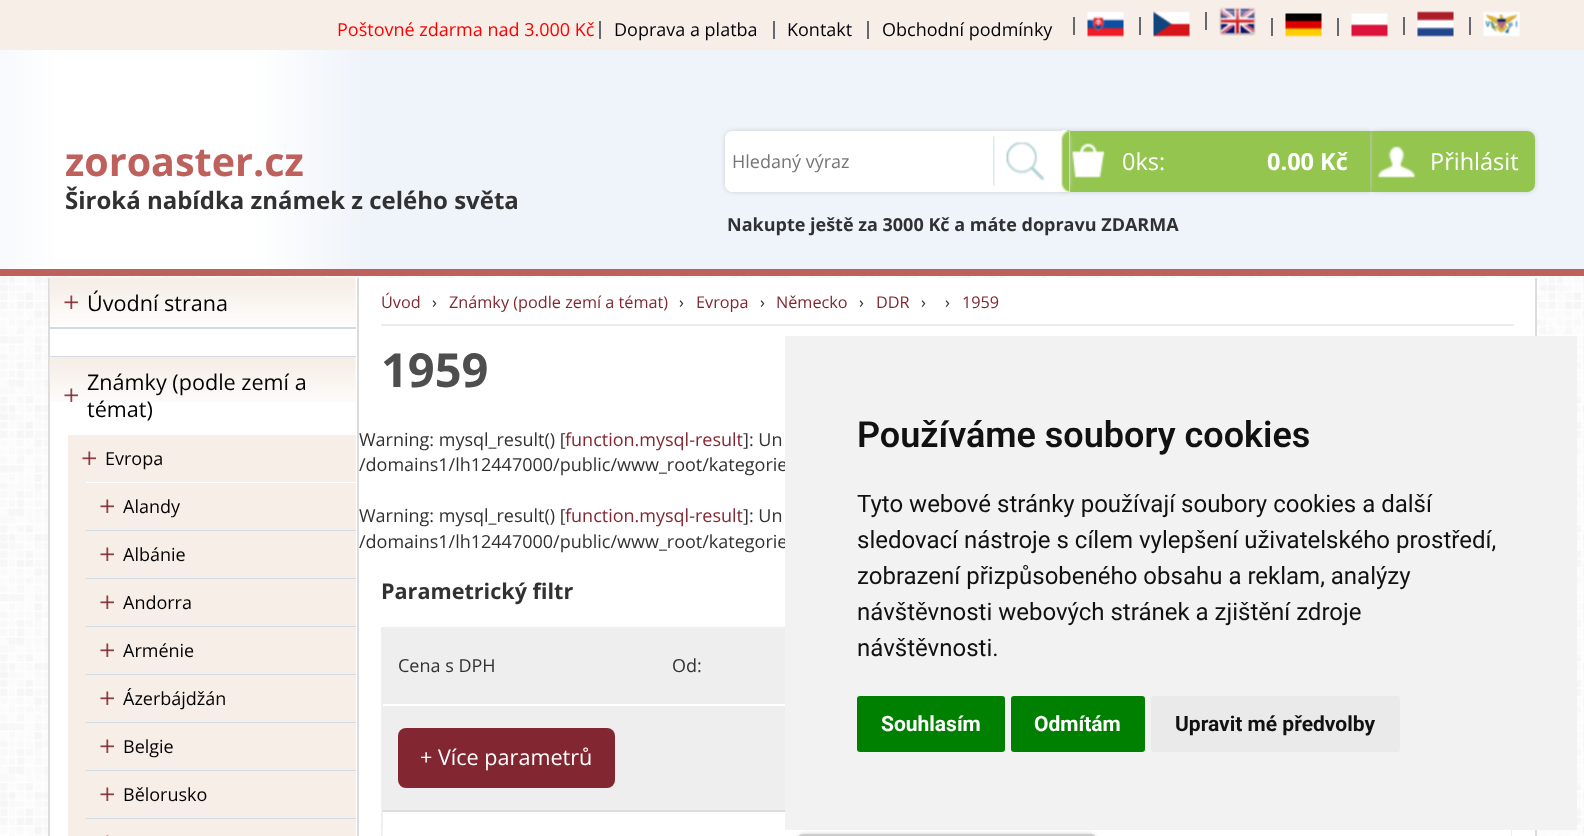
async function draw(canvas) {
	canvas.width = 1584;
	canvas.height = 836;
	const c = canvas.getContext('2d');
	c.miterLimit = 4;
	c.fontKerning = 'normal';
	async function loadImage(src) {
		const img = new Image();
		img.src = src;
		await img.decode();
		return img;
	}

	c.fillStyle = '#fff';
	c.fillRect(0, 0, 1584, 836);
	c.drawImage(await loadImage('img1.png'), 0, 50, 1584, 786);
	c.drawImage(await loadImage('img2.png'), 0, 50, 1584, 219);
	c.fillStyle = '#be615c';
	c.fillRect(0, 269, 1584, 7);
	c.fillStyle = '#f6eee7';
	c.fillRect(0, 0, 1584, 50);
	c.font = '18px Open Sans';
	c.fillStyle = '#f00';
	c.fillText('Poštovné zdarma nad 3.000 Kč', 337, 36);
	c.fillStyle = '#64696f';
	c.fillRect(599, 21, 2, 18);
	c.fillStyle = '#000208';
	c.fillText('Doprava a platba', 614, 36);
	c.fillStyle = '#64696f';
	c.fillRect(773, 21, 2, 18);
	c.fillStyle = '#000208';
	c.fillText('Kontakt', 787, 36);
	c.fillStyle = '#64696f';
	c.fillRect(867, 21, 2, 18);
	c.fillStyle = '#000208';
	c.fillText('Obchodní podmínky', 882, 36);
	c.fillStyle = '#64696f';
	c.fillRect(1073, 17, 2, 18);
	c.drawImage(await loadImage('img3.png'), 1087, 11, 37, 26);
	c.fillRect(1139, 17, 2, 18);
	c.drawImage(await loadImage('img4.png'), 1153, 11, 37, 26);
	c.fillRect(1205, 12, 2, 18);
	c.drawImage(await loadImage('img5.png'), 1219, 7, 37, 29);
	c.fillRect(1271, 18, 2, 18);
	c.drawImage(await loadImage('img6.png'), 1285, 13, 37, 24);
	c.fillRect(1337, 18, 2, 18);
	c.drawImage(await loadImage('img7.png'), 1351, 13, 37, 24);
	c.fillRect(1403, 17, 2, 18);
	c.drawImage(await loadImage('img8.png'), 1417, 11, 37, 26);
	c.fillRect(1469, 17, 2, 18);
	c.drawImage(await loadImage('img9.png'), 1483, 11, 37, 26);
	c.font = 'bold 39.5px Open Sans';
	c.fillStyle = '#be615c';
	c.fillText('zoroaster.cz', 65, 176);
	c.font = 'bold 24px Open Sans';
	c.fillStyle = '#313131';
	c.fillText('Široká nabídka známek z celého světa', 65, 209);
	c.fillStyle = '#ccc';
	c.filter = 'blur(2px)';
	c.beginPath();
	c.roundRect(1370, 131, 165, 61, 8);
	c.fill();
	c.filter = 'none';
	c.fillStyle = '#94c64f';
	c.beginPath();
	c.roundRect(1370, 131, 165, 61, [0, 8, 8, 0]);
	c.fill();
	c.drawImage(await loadImage('img11.png'), 1370, 134, 46, 54);
	c.fillStyle = '#ccc';
	c.filter = 'blur(2px)';
	c.beginPath();
	c.rect(1062, 131, 308, 61);
	c.fill();
	c.filter = 'none';
	c.fillStyle = '#94c64f';
	c.fillRect(1070, 131, 300, 61);
	c.drawImage(await loadImage('img10.png'), 1072, 143, 33, 35);
	c.font = '23.5px Open Sans';
	c.fillStyle = '#fff';
	c.fillText('0ks:', 1122, 170);
	c.font = 'bold 23.5px Open Sans';
	c.fillText('0.00 Kč', 1267, 170);
	c.font = '23.5px Open Sans';
	c.fillText('Přihlásit', 1430, 170);
	c.fillStyle = '#ccc';
	c.filter = 'blur(2px)';
	c.beginPath();
	c.roundRect(725, 131, 345, 61, 8);
	c.fill();
	c.filter = 'none';
	c.fillStyle = '#fff';
	c.beginPath();
	c.roundRect(725, 131, 345, 61, [8, 0, 0, 8]);
	c.fill();
	c.drawImage(await loadImage('img12.png'), 1061, 130, 9, 62);
	c.beginPath();
	c.roundRect(725, 131, 264, 61, [8, 0, 0, 8]);
	c.fill();
	c.font = '18px Open Sans';
	c.fillStyle = '#757575';
	c.fillText('Hledaný výraz', 732, 168);
	c.drawImage(await loadImage('img13.png'), 993, 136, 52, 51);
	c.font = 'bold 18px Open Sans';
	c.fillStyle = '#313131';
	c.fillText('Nakupte ještě za 3000 Kč a máte dopravu ZDARMA', 727, 231);
	for (const [x, y, w, h, color] of [
		[50, 278, 1485, 558, '#fff'],
		[1535, 278, 2, 558, '#dcdcdc'],
		[48, 278, 2, 558, '#dcdcdc'],
	]) {
		c.fillStyle = color;
		c.fillRect(x, y, w, h);
	}
	c.drawImage(await loadImage('img14.png'), 49, 277, 307, 48);
	c.fillStyle = '#d4dae4';
	c.fillRect(50, 327, 306, 2);
	c.drawImage(await loadImage('img15.png'), 64, 295, 14, 14);
	c.font = '21.6px Open Sans';
	c.fillStyle = '#000';
	c.fillText('Úvodní strana', 87, 311);
	c.fillStyle = '#d4dae4';
	c.fillRect(50, 356, 306, 1);
	c.drawImage(await loadImage('img16.png'), 49, 357, 307, 45);
	c.drawImage(await loadImage('img17.png'), 64, 388, 14, 14);
	c.fillStyle = '#000';
	c.fillText('Známky (podle zemí a', 87, 390);
	c.fillText('témat)', 87, 417);
	c.fillStyle = '#f6eee7';
	c.fillRect(68, 435, 288, 401);
	c.drawImage(await loadImage('img18.png'), 82, 451, 14, 14);
	c.font = '18px Open Sans';
	c.fillStyle = '#000';
	c.fillText('Evropa', 105, 465);
	c.fillStyle = '#fff';
	c.fillRect(86, 482, 270, 1);
	c.fillStyle = '#d4dae4';
	c.fillRect(86, 530, 270, 1);
	c.drawImage(await loadImage('img18.png'), 100, 499, 14, 14);
	c.fillStyle = '#000';
	c.fillText('Alandy', 123, 513);
	c.fillStyle = '#d4dae4';
	c.fillRect(86, 578, 270, 1);
	c.drawImage(await loadImage('img18.png'), 100, 547, 14, 14);
	c.fillStyle = '#000';
	c.fillText('Albánie', 123, 561);
	c.fillStyle = '#d4dae4';
	c.fillRect(86, 626, 270, 1);
	c.drawImage(await loadImage('img18.png'), 100, 595, 14, 14);
	c.fillStyle = '#000';
	c.fillText('Andorra', 123, 609);
	c.fillStyle = '#d4dae4';
	c.fillRect(86, 674, 270, 1);
	c.drawImage(await loadImage('img18.png'), 100, 643, 14, 14);
	c.fillStyle = '#000';
	c.fillText('Arménie', 123, 657);
	c.fillStyle = '#d4dae4';
	c.fillRect(86, 722, 270, 1);
	c.drawImage(await loadImage('img18.png'), 100, 691, 14, 14);
	c.fillStyle = '#000';
	c.fillText('Ázerbájdžán', 123, 705);
	c.fillStyle = '#d4dae4';
	c.fillRect(86, 770, 270, 1);
	c.drawImage(await loadImage('img18.png'), 100, 739, 14, 14);
	c.fillStyle = '#000';
	c.fillText('Belgie', 123, 753);
	c.fillStyle = '#d4dae4';
	c.fillRect(86, 818, 270, 1);
	c.drawImage(await loadImage('img18.png'), 100, 787, 14, 14);
	c.fillStyle = '#000';
	c.fillText('Bělorusko', 123, 801);
	c.drawImage(await loadImage('img19.png'), 106, 835, 3, 1);
	c.fillStyle = '#dcdcdc';
	c.fillRect(357, 278, 2, 558);
	c.fillStyle = '#ededed';
	c.fillRect(381, 324, 1133, 2);
	c.font = '16.25px Open Sans';
	c.fillStyle = '#822731';
	c.fillText('Úvod', 381, 308);
	c.fillStyle = '#313131';
	c.fillText('›', 432, 308);
	c.fillStyle = '#822731';
	c.fillText('Známky (podle zemí a témat)', 449, 308);
	c.fillStyle = '#313131';
	c.fillText('›', 679, 308);
	c.fillStyle = '#822731';
	c.fillText('Evropa', 696, 308);
	c.fillStyle = '#313131';
	c.fillText('›', 760, 308);
	c.fillStyle = '#822731';
	c.fillText('Německo', 776, 308);
	c.fillStyle = '#313131';
	c.fillText('›', 859, 308);
	c.fillStyle = '#822731';
	c.fillText('DDR', 876, 308);
	c.fillStyle = '#313131';
	c.fillText('›', 921, 308);
	c.fillText('›', 945, 308);
	c.fillStyle = '#822731';
	c.fillText('1959', 962, 308);
	c.font = 'bold 47px Open Sans';
	c.fillStyle = '#4e4e4e';
	c.fillText('1959', 381, 387);
	c.font = '18px Open Sans';
	c.fillStyle = '#313131';
	c.fillText('Warning: mysql_result() [', 359, 446);
	c.fillStyle = '#822731';
	c.fillText('function.mysql-result', 565, 446);
	c.fillStyle = '#313131';
	for (const [text, x, y] of [
		[']: Un', 743, 446],
		['/domains1/lh12447000/public/www_root/kategorie', 359, 471],
		['Warning: mysql_result() [', 359, 522],
	]) {
		c.fillText(text, x, y);
	}
	c.fillStyle = '#822731';
	c.fillText('function.mysql-result', 565, 522);
	c.fillStyle = '#313131';
	c.fillText(']: Un', 743, 522);
	c.fillText('/domains1/lh12447000/public/www_root/kategorie', 359, 548);
	c.font = 'bold 21.6px Open Sans';
	c.fillText('Parametrický filtr', 381, 599);
	c.fillStyle = '#eee';
	c.fillRect(381, 627, 1131, 209);
	c.font = '18px Open Sans';
	c.fillStyle = '#313131';
	c.fillText('Cena s DPH', 398, 672);
	c.fillText('Od:', 672, 672);
	c.fillStyle = '#fff';
	c.fillRect(383, 704, 402, 2);
	c.fillStyle = '#dcdcdc';
	c.fillRect(383, 810, 402, 2);
	c.fillStyle = '#822731';
	c.beginPath();
	c.roundRect(398, 728, 217, 60, 8);
	c.fill();
	c.font = '21.6px Open Sans';
	c.fillStyle = '#fff';
	c.fillText('+ Více parametrů', 420, 765);
	c.fillRect(383, 812, 1128, 24);
	c.fillStyle = '#f5f5f5';
	c.fillRect(382, 827, 1, 9);
	c.fillStyle = '#ccc';
	c.filter = 'blur(2px)';
	c.beginPath();
	c.roundRect(797, 834, 300, 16, 8);
	c.fill();
	c.filter = 'none';
	c.beginPath();
	c.roundRect(798, 835, 298, 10, 7);
	c.strokeStyle = '#ccc';
	c.lineWidth = 2;
	c.stroke();
	c.fillStyle = '#f2f2f2';
	c.fillRect(785, 336, 792, 494);
	c.font = '600 36px Roboto';
	c.fillStyle = '#111';
	c.fillText('Používáme soubory cookies', 857, 447);
	c.font = '24px Roboto';
	for (const [text, x, y] of [
		['Tyto webové stránky používají soubory cookies a další', 857, 512],
		['sledovací nástroje s cílem vylepšení uživatelského prostředí,', 857, 548],
		['zobrazení přizpůsobeného obsahu a reklam, analýzy', 857, 584],
		['návštěvnosti webových stránek a zjištění zdroje', 857, 620],
		['návštěvnosti.', 857, 656],
	]) {
		c.fillText(text, x, y);
	}
	c.fillStyle = '#008000';
	c.beginPath();
	c.roundRect(857, 696, 148, 56, 3);
	c.fill();
	c.font = 'bold 21px Roboto';
	c.fillStyle = '#fff';
	c.fillText('Souhlasím', 881, 731);
	c.fillStyle = '#008000';
	c.beginPath();
	c.roundRect(1011, 696, 134, 56, 3);
	c.fill();
	c.fillStyle = '#fff';
	c.fillText('Odmítám', 1034, 731);
	c.fillStyle = '#eaeaea';
	c.beginPath();
	c.roundRect(1151, 696, 249, 56, 3);
	c.fill();
	c.fillStyle = '#111';
	c.fillText('Upravit mé předvolby', 1175, 731);
}

draw(document.querySelector('canvas'));
